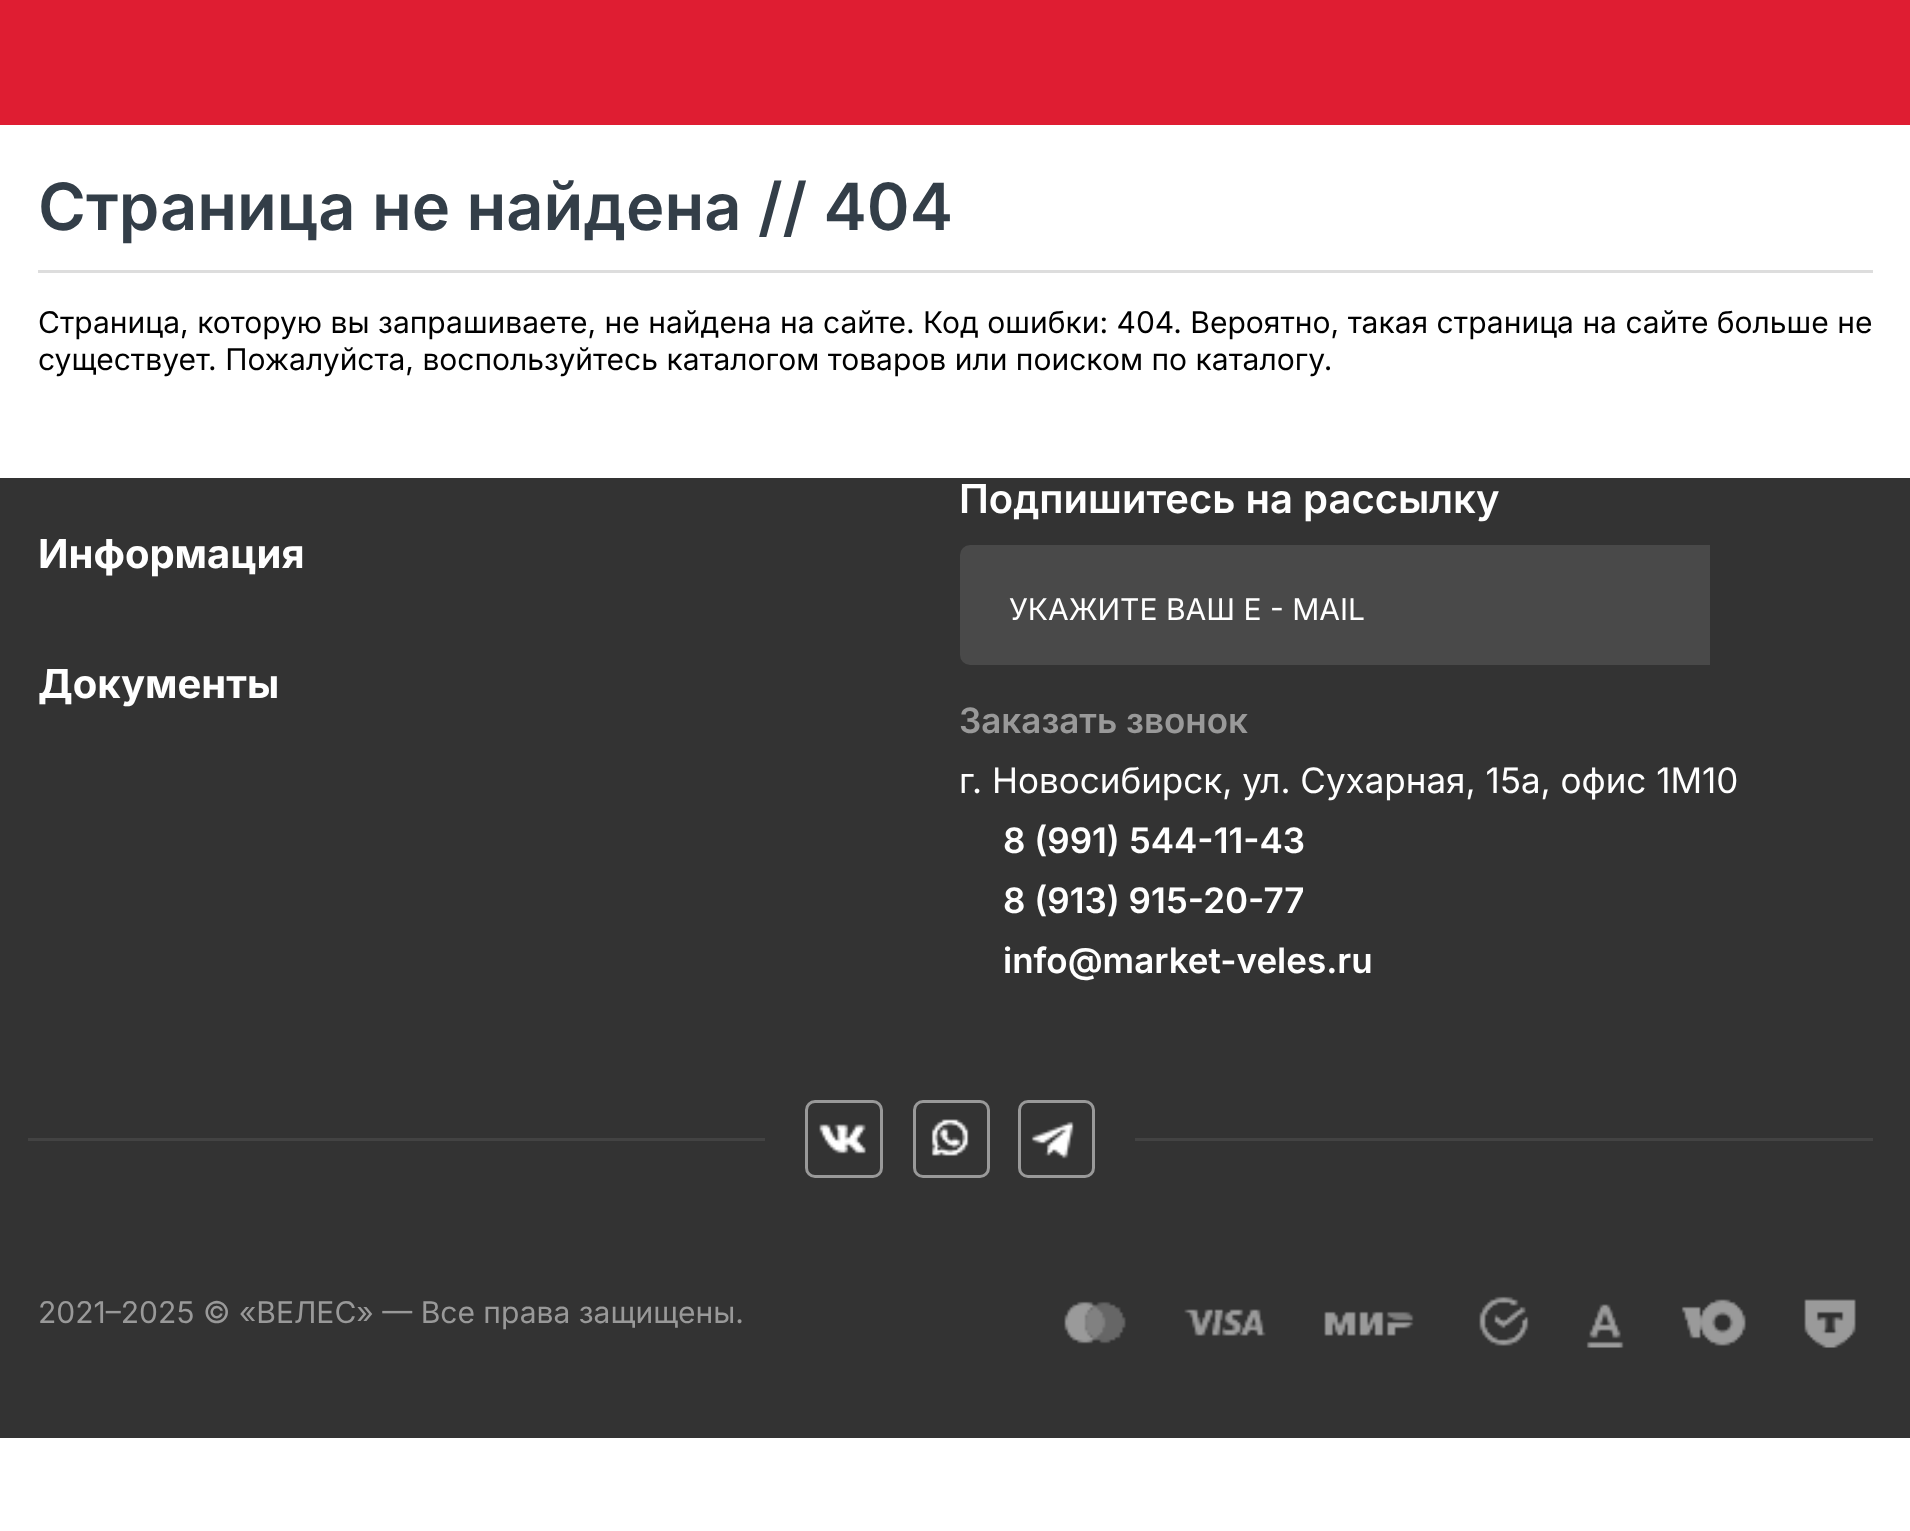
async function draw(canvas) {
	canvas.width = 1910;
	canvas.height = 1531;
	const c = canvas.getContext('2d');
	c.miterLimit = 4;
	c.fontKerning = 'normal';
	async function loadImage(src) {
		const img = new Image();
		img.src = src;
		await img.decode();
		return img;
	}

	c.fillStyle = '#fff';
	c.fillRect(0, 0, 1910, 1531);
	c.fillStyle = '#df1d32';
	c.fillRect(0, 0, 1910, 125);
	c.fillStyle = '#ddd';
	c.fillRect(38, 270, 1835, 3);
	c.font = '600 65px Inter';
	c.fillStyle = '#333e48';
	c.fillText('Страница не найдена // 404', 38, 230);
	c.font = '30px Inter';
	c.fillStyle = '#000';
	c.fillText('Страница, которую вы запрашиваете, не найдена на сайте. Код ошибки: 404. Вероятно, такая страница на сайте больше не', 38, 333);
	c.fillText('существует. Пожалуйста, воспользуйтесь каталогом товаров или поиском по каталогу.', 38, 370);
	c.fillStyle = '#333';
	c.fillRect(0, 478, 1910, 960);
	c.font = 'bold 40px Inter';
	c.fillStyle = '#fff';
	c.fillText('Информация', 38, 568);
	c.fillText('Документы', 38, 698);
	c.font = '600 40px Inter';
	c.fillText('Подпишитесь на рассылку', 959, 513);
	c.fillStyle = '#494949';
	c.beginPath();
	c.roundRect(960, 545, 643, 120, [10, 0, 0, 10]);
	c.fill();
	c.font = '30px Inter';
	c.fillStyle = '#fff';
	c.fillText('УКАЖИТЕ ВАШ E - MAIL', 1009, 620);
	c.fillStyle = '#494949';
	c.fillRect(1603, 545, 107, 120);
	c.font = '600 35px Inter';
	c.fillStyle = '#999';
	c.fillText('Заказать звонок', 959, 733);
	c.font = '35px Inter';
	c.fillStyle = '#fff';
	c.fillText('г. Новосибирск, ул. Сухарная, 15а, офис 1М10', 959, 793);
	c.font = '600 35px Inter';
	for (const [text, x, y] of [
		['8 (991) 544-11-43', 1003, 853],
		['8 (913) 915-20-77', 1003, 913],
		['info@market-veles.ru', 1003, 973],
	]) {
		c.fillText(text, x, y);
	}
	c.fillStyle = '#434343';
	c.fillRect(28, 1138, 737, 3);
	c.drawImage(await loadImage('img1.png'), 819, 1124, 47, 30);
	c.beginPath();
	c.roundRect(806.5, 1101.5, 75, 75, 8.5);
	c.strokeStyle = '#999';
	c.lineWidth = 3;
	c.stroke();
	c.drawImage(await loadImage('img2.png'), 931, 1119, 38, 37);
	c.beginPath();
	c.roundRect(914.5, 1101.5, 74, 75, 8.5);
	c.stroke();
	c.drawImage(await loadImage('img3.png'), 1031, 1121, 43, 38);
	c.beginPath();
	c.roundRect(1019.5, 1101.5, 74, 75, 8.5);
	c.stroke();
	c.fillRect(1135, 1138, 738, 3);
	c.font = '30px Inter';
	c.fillStyle = '#999';
	c.fillText('2021–2025 © «ВЕЛЕС» — Все права защищены.', 38, 1323);
	c.drawImage(await loadImage('img4.png'), 1064, 1296, 792, 52);
}

draw(document.querySelector('canvas'));
